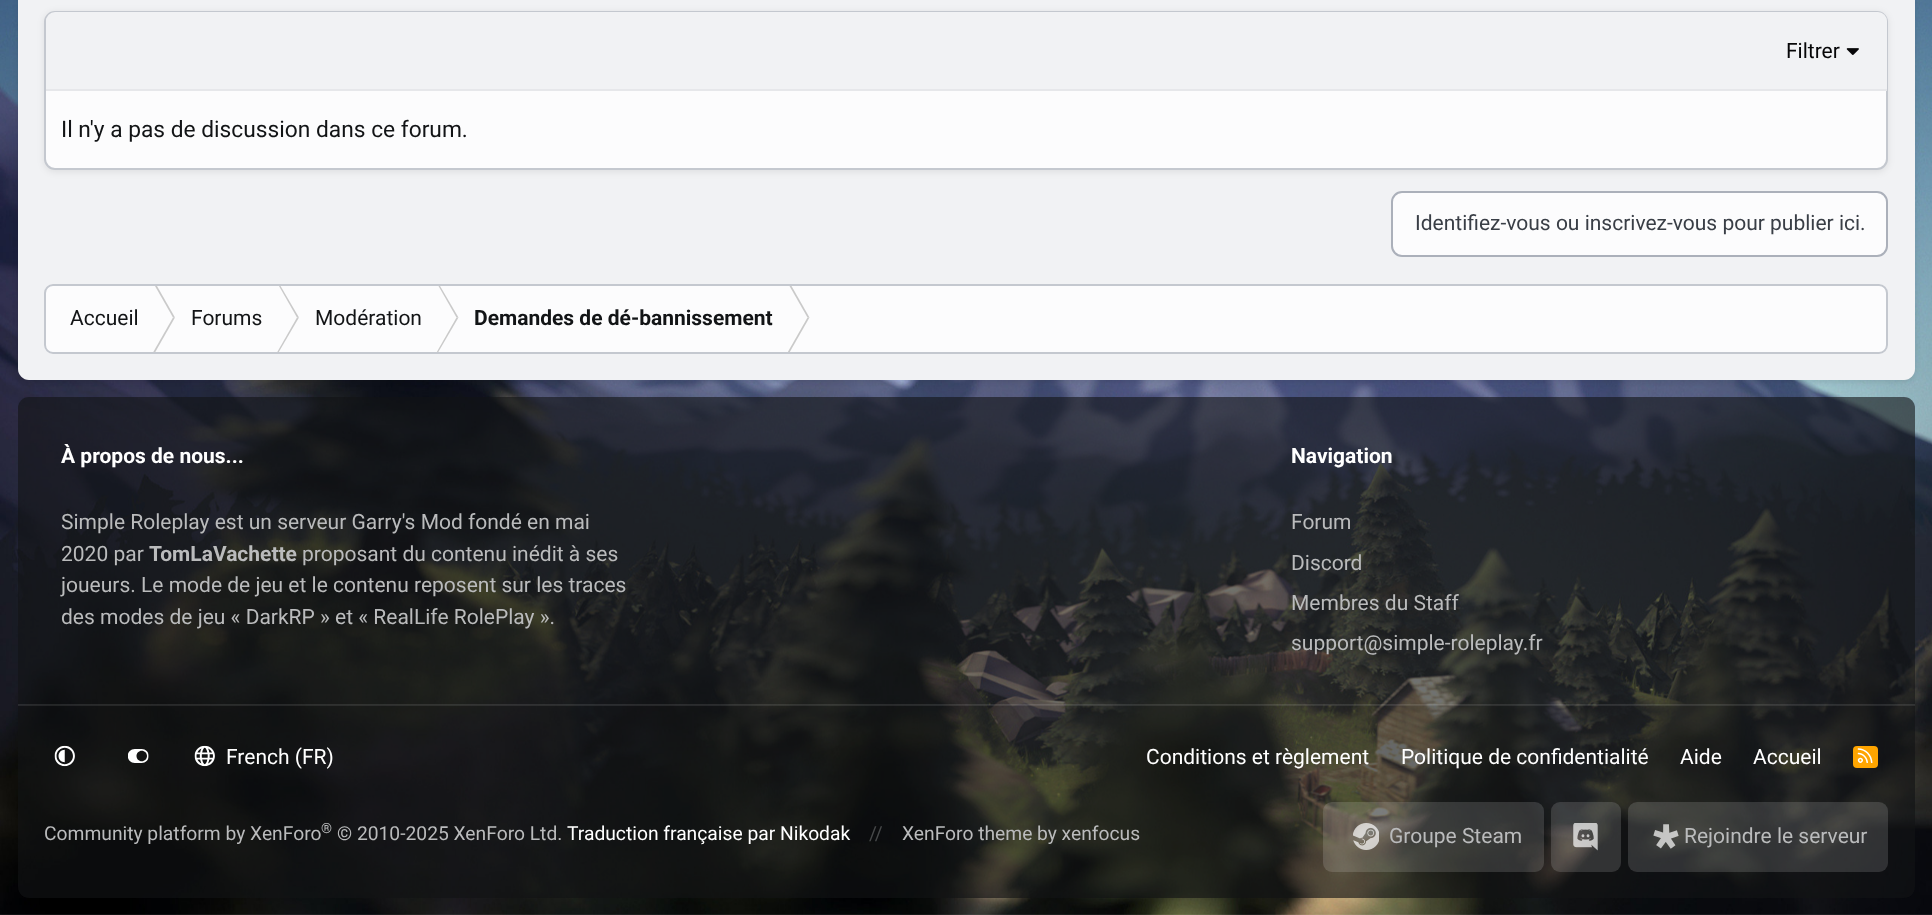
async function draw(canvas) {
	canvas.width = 1932;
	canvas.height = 915;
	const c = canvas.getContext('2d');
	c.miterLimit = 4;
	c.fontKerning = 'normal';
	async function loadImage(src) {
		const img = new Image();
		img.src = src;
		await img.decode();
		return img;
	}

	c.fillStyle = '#fff';
	c.fillRect(0, 0, 1932, 915);
	c.drawImage(await loadImage('img1.png'), 0, 0, 1932, 915);
	c.fillStyle = '#00000014';
	c.filter = 'blur(2.5px)';
	c.beginPath();
	c.roundRect(18, -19, 1897, 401, 11);
	c.fill();
	c.filter = 'none';
	c.fillStyle = '#12141699';
	c.beginPath();
	c.roundRect(18, 397, 1897, 501, 11);
	c.fill();
	c.fillStyle = '#0000000f';
	c.filter = 'blur(17.5px)';
	c.beginPath();
	c.roundRect(18, -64, 1897, 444, 11);
	c.fill();
	c.filter = 'none';
	c.fillStyle = '#f1f2f4';
	c.beginPath();
	c.moveTo(18, -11);
	c.lineTo(1915, -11);
	c.lineTo(1915, 369);
	c.bezierCurveTo(1915, 375, 1910, 380, 1904, 380);
	c.lineTo(29, 380);
	c.bezierCurveTo(23, 380, 18, 375, 18, 369);
	c.closePath();
	c.fill();
	c.fillStyle = '#00000014';
	c.filter = 'blur(3.5px)';
	c.beginPath();
	c.roundRect(44, 12, 1844, 160, 11);
	c.fill();
	c.filter = 'none';
	c.fillStyle = '#fcfcfd';
	c.beginPath();
	c.roundRect(45, 12, 1842, 157, 10);
	c.fill();
	c.strokeStyle = '#c4c8cf';
	c.lineWidth = 2;
	c.stroke();
	c.fillStyle = '#f1f2f4';
	c.beginPath();
	c.roundRect(46, 12, 1841, 79, [9, 9, 0, 0]);
	c.fill();
	c.fillStyle = '#e6e7ea';
	c.fillRect(46, 89, 1841, 2);
	c.font = '21px Roboto';
	c.fillStyle = '#070708';
	c.fillText('Filtrer', 1786, 58);
	c.drawImage(await loadImage('img2.png'), 1846, 48, 13, 7);
	c.font = '22.75px Roboto';
	c.fillStyle = '#121416';
	c.fillText('Il n\'y a pas de discussion dans ce forum.', 61, 137);
	c.fillStyle = '#fcfcfd';
	c.beginPath();
	c.roundRect(1392, 192, 495, 64, 10);
	c.fill();
	c.strokeStyle = '#abb0ba';
	c.stroke();
	c.font = '21px Roboto';
	c.fillStyle = '#393e46';
	c.fillText('Identifiez-vous ou inscrivez-vous pour publier ici.', 1415, 230);
	c.fillStyle = '#fcfcfd';
	c.beginPath();
	c.roundRect(44, 284, 1844, 70, 9);
	c.fill();
	c.save();
	c.beginPath();
	c.rect(44, 284, 1844, 70);
	c.clip();
	c.fillStyle = '#cacaca';
	c.beginPath();
	c.moveTo(153, 282.5);
	c.lineTo(155, 282.5);
	c.lineTo(175, 317.5);
	c.lineTo(173, 317.5);
	c.closePath();
	c.fill();
	c.restore();
	c.fillStyle = '#cacaca';
	c.beginPath();
	c.moveTo(173, 317.5);
	c.lineTo(175, 317.5);
	c.lineTo(155, 352.5);
	c.lineTo(153, 352.5);
	c.closePath();
	c.fill();
	c.save();
	c.beginPath();
	c.rect(44, 284, 1844, 70);
	c.clip();
	c.beginPath();
	c.moveTo(277, 282.5);
	c.lineTo(278.5, 282.5);
	c.lineTo(299, 317.5);
	c.lineTo(297, 317.5);
	c.closePath();
	c.fill();
	c.restore();
	c.beginPath();
	c.moveTo(297, 317.5);
	c.lineTo(299, 317.5);
	c.lineTo(278.5, 352.5);
	c.lineTo(277, 352.5);
	c.closePath();
	c.fill();
	c.save();
	c.beginPath();
	c.rect(44, 284, 1844, 70);
	c.clip();
	c.beginPath();
	c.moveTo(436.5, 282.5);
	c.lineTo(438, 282.5);
	c.lineTo(458.5, 317.5);
	c.lineTo(456.5, 317.5);
	c.closePath();
	c.fill();
	c.restore();
	c.fillStyle = '#fdfdfd';
	c.beginPath();
	c.moveTo(455, 317.5);
	c.lineTo(456.5, 317.5);
	c.lineTo(436.5, 352.5);
	c.lineTo(434.5, 352.5);
	c.closePath();
	c.fill();
	c.fillStyle = '#cacaca';
	c.beginPath();
	c.moveTo(456.5, 317.5);
	c.lineTo(458.5, 317.5);
	c.lineTo(438, 352.5);
	c.lineTo(436.5, 352.5);
	c.closePath();
	c.fill();
	c.save();
	c.beginPath();
	c.rect(44, 284, 1844, 70);
	c.clip();
	c.beginPath();
	c.moveTo(787.5, 282.5);
	c.lineTo(789.5, 282.5);
	c.lineTo(809.5, 317.5);
	c.lineTo(807.5, 317.5);
	c.closePath();
	c.fill();
	c.restore();
	c.fillStyle = '#fdfdfd';
	c.beginPath();
	c.moveTo(806, 317.5);
	c.lineTo(807.5, 317.5);
	c.lineTo(787.5, 352.5);
	c.lineTo(786, 352.5);
	c.closePath();
	c.fill();
	c.fillStyle = '#cacaca';
	c.beginPath();
	c.moveTo(807.5, 317.5);
	c.lineTo(809.5, 317.5);
	c.lineTo(789.5, 352.5);
	c.lineTo(787.5, 352.5);
	c.closePath();
	c.fill();
	c.beginPath();
	c.roundRect(45, 285, 1842, 68, 8);
	c.strokeStyle = '#c4c8cf';
	c.stroke();
	c.fillStyle = '#121416';
	for (const [text, x, y] of [
		['Accueil', 70, 325],
		['Forums', 191, 325],
		['Modération', 315, 325],
	]) {
		c.fillText(text, x, y);
	}
	c.font = 'bold 21px Roboto';
	c.fillText('Demandes de dé-bannissement', 474, 325);
	c.fillStyle = '#ffffff1a';
	c.fillRect(18, 704, 1897, 2);
	c.fillStyle = '#fff';
	c.fillText('À propos de nous...', 61, 463);
	c.font = '21px Roboto';
	c.fillStyle = '#babbbc';
	c.fillText('Simple Roleplay est un serveur Garry\'s Mod fondé en mai', 61, 529);
	c.fillText('2020 par', 61, 561);
	c.font = 'bold 21px Roboto';
	c.fillText('TomLaVachette', 149, 561);
	c.font = '21px Roboto';
	for (const [text, x, y] of [
		['proposant du contenu inédit à ses', 302, 561],
		['joueurs. Le mode de jeu et le contenu reposent sur les traces', 61, 592],
		['des modes de jeu « DarkRP » et « RealLife RolePlay ».', 61, 624],
	]) {
		c.fillText(text, x, y);
	}
	c.font = 'bold 21px Roboto';
	c.fillStyle = '#fff';
	c.fillText('Navigation', 1291, 463);
	c.font = '21px Roboto';
	c.fillStyle = '#babbbc';
	for (const [text, x, y] of [
		['Forum', 1291, 529],
		['Discord', 1291, 570],
		['Membres du Staff', 1291, 610],
		['support@simple-roleplay.fr', 1291, 650],
	]) {
		c.fillText(text, x, y);
	}
	c.fillStyle = '#1214161a';
	c.beginPath();
	c.roundRect(18, 705, 1897, 193, [0, 0, 11, 11]);
	c.fill();
	c.drawImage(await loadImage('img3.png'), 54, 745, 21, 22);
	c.drawImage(await loadImage('img4.png'), 128, 749, 21, 14);
	c.drawImage(await loadImage('img5.png'), 194, 745, 21, 22);
	c.fillStyle = '#fff';
	for (const [text, x, y] of [
		['French (FR)', 226, 764],
		['Conditions et règlement', 1146, 764],
		['Politique de confidentialité', 1401, 764],
		['Aide', 1680, 764],
		['Accueil', 1753, 764],
	]) {
		c.fillText(text, x, y);
	}
	c.fillStyle = '#ffa500';
	c.beginPath();
	c.roundRect(1853, 746, 25, 22, 4);
	c.fill();
	c.drawImage(await loadImage('img6.png'), 1857, 748, 16, 15);
	c.font = '19.25px Roboto';
	c.fillStyle = '#babbbc';
	c.fillText('Community platform by XenForo', 44, 840);
	c.font = '14px Roboto';
	c.fillText('®', 321, 833);
	c.font = '19.25px Roboto';
	c.fillText('© 2010-2025 XenForo Ltd.', 337, 840);
	c.fillStyle = '#fff';
	c.fillText('Traduction française par Nikodak', 567, 840);
	c.fillStyle = '#47494a';
	c.fillText('//', 869, 840);
	c.fillStyle = '#babbbc';
	c.fillText('XenForo theme', 902, 840);
	c.fillText('by xenfocus', 1037, 840);
	c.drawImage(await loadImage('img7.png'), 1353, 823, 26, 27);
	c.fillStyle = '#ffffff24';
	c.beginPath();
	c.roundRect(1323, 802, 221, 70, 9);
	c.fill();
	c.font = '21px Roboto';
	c.fillStyle = '#babbbc';
	c.fillText('Groupe Steam', 1389, 843);
	c.drawImage(await loadImage('img8.png'), 1573, 823, 25, 28);
	c.fillStyle = '#ffffff24';
	c.beginPath();
	c.roundRect(1551, 802, 70, 70, 9);
	c.fill();
	c.drawImage(await loadImage('img9.png'), 1653, 824, 26, 25);
	c.beginPath();
	c.roundRect(1628, 802, 260, 70, 9);
	c.fill();
	c.fillStyle = '#babbbc';
	c.fillText('Rejoindre le serveur', 1684, 843);
}

draw(document.querySelector('canvas'));
